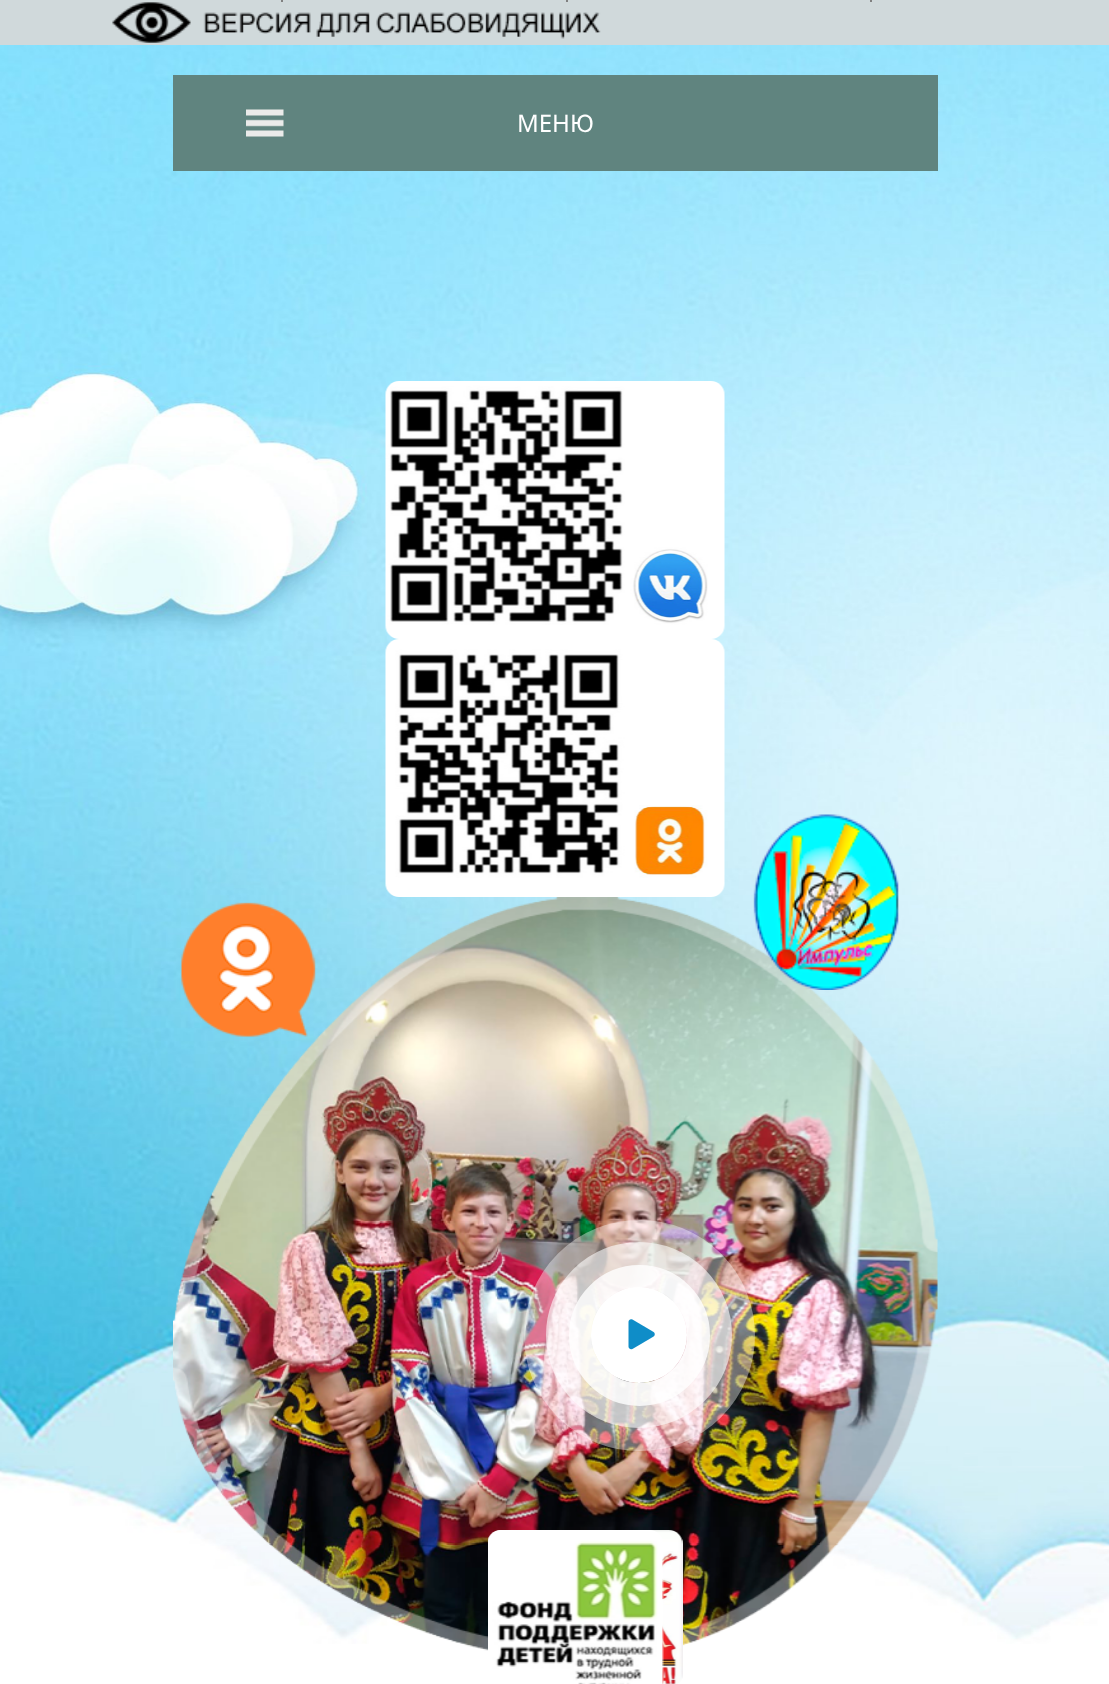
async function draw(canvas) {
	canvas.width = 1109;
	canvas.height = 1684;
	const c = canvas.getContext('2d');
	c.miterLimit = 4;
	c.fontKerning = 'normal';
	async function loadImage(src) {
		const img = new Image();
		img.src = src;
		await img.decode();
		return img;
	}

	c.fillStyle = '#fff';
	c.fillRect(0, 0, 1109, 1684);
	for (const [x, y, w, h, color] of [
		[0, 0, 1109, 45, '#d0d9db'],
		[281, 0, 2, 2, '#808080'],
		[566, 0, 2, 2, '#808080'],
		[870, 0, 2, 2, '#808080'],
	]) {
		c.fillStyle = color;
		c.fillRect(x, y, w, h);
	}
	c.drawImage(await loadImage('img1.png'), 112, 2, 489, 41);
	c.drawImage(await loadImage('img2.png'), 0, 45, 1109, 1599);
	c.fillStyle = '#60847f';
	c.fillRect(173, 75, 765, 96);
	c.drawImage(await loadImage('img3.png'), 246, 109, 38, 28);
	c.font = '24px Noto Sans';
	c.fillStyle = '#fff';
	c.fillText('МЕНЮ', 517, 132);
	c.drawImage(await loadImage('img4.png'), 385, 381, 340, 258);
	c.drawImage(await loadImage('img5.png'), 385, 639, 340, 258);
	c.drawImage(await loadImage('img7.png'), 173, 897, 765, 754);
	c.drawImage(await loadImage('img6.png'), 753, 814, 146, 176);
	c.drawImage(await loadImage('img8.png'), 181, 902, 135, 135);
	c.beginPath();
	c.arc(639.5, 1335.5, 81.5, 0, 2 * Math.PI);
	c.strokeStyle = '#ffffff66';
	c.lineWidth = 68;
	c.stroke();
	c.beginPath();
	c.arc(639, 1335, 70.5, 0, 2 * Math.PI);
	c.strokeStyle = '#ffffff99';
	c.lineWidth = 45;
	c.stroke();
	c.beginPath();
	c.arc(639.5, 1335.5, 59, 0, 2 * Math.PI);
	c.strokeStyle = '#ffffffcc';
	c.lineWidth = 23;
	c.stroke();
	c.beginPath();
	c.arc(639, 1335, 48, 0, 2 * Math.PI);
	c.fill();
	c.drawImage(await loadImage('img9.png'), 628, 1319, 27, 31);
	c.drawImage(await loadImage('img10.png'), 488, 1530, 195, 154);
	c.drawImage(await loadImage('img11.png'), 488, 1530, 176, 154);
}

draw(document.querySelector('canvas'));
